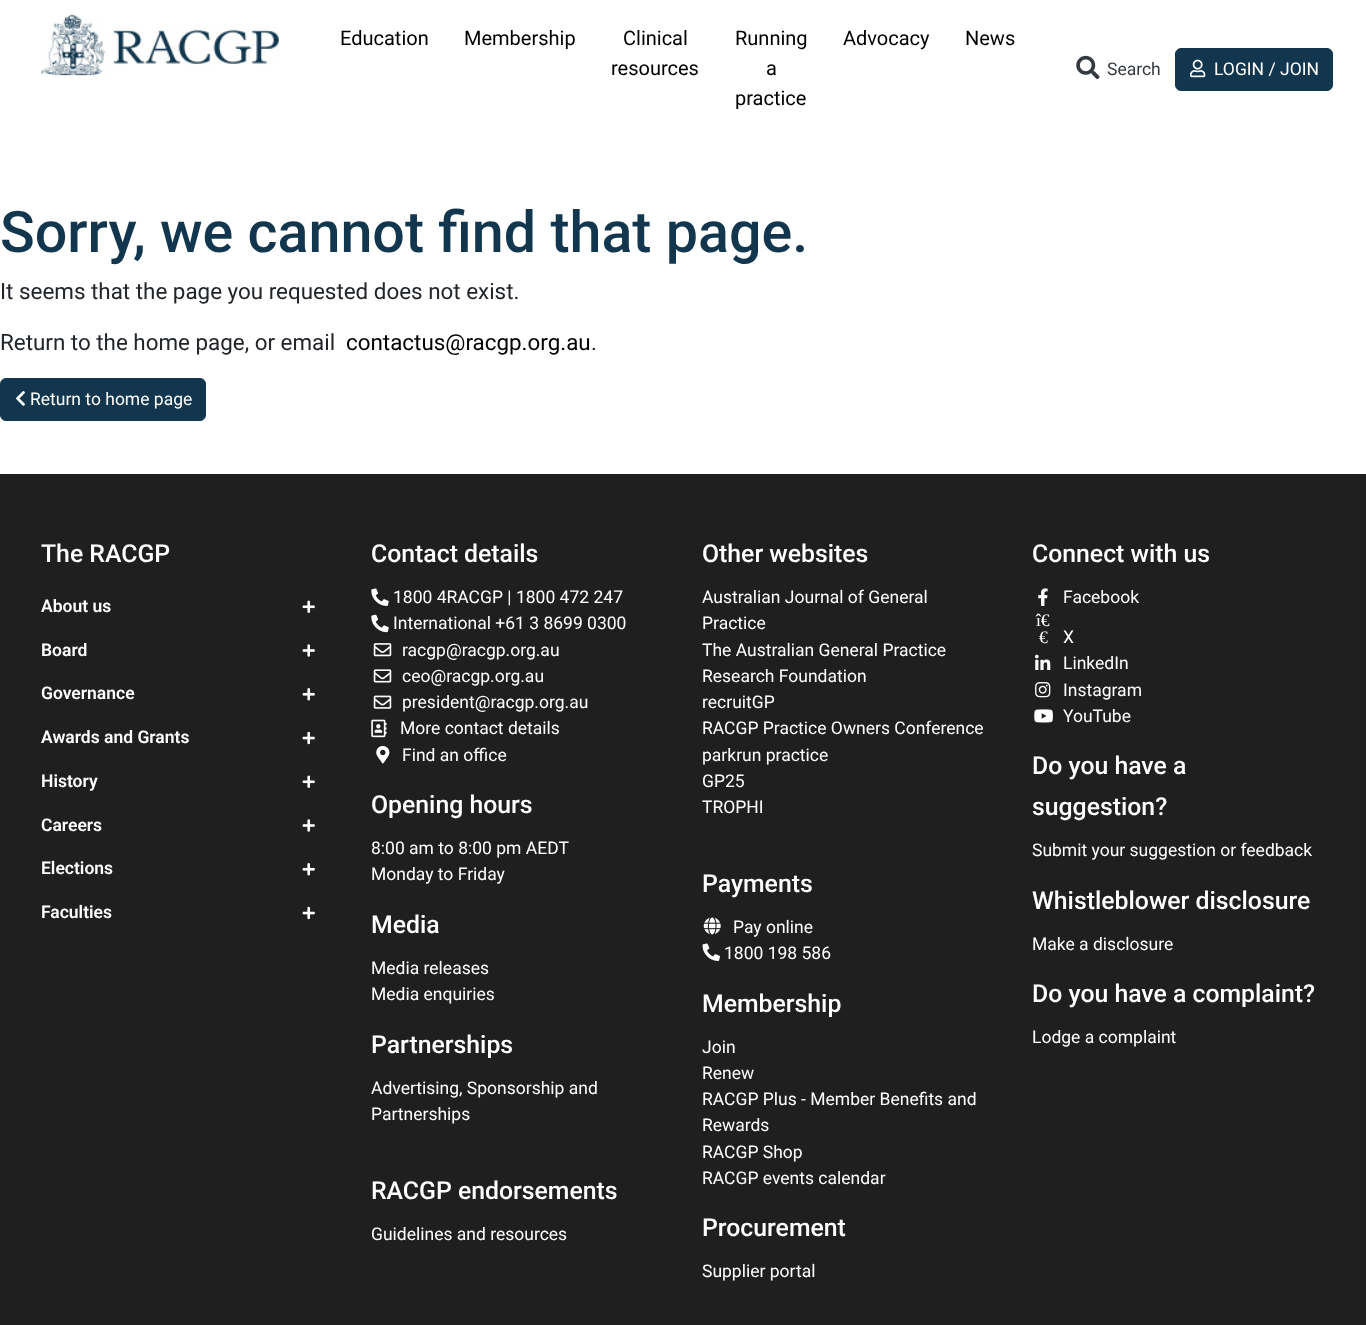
async function draw(canvas) {
	canvas.width = 1366;
	canvas.height = 1325;
	const c = canvas.getContext('2d');
	c.miterLimit = 4;
	c.fontKerning = 'normal';
	async function loadImage(src) {
		const img = new Image();
		img.src = src;
		await img.decode();
		return img;
	}

	c.fillStyle = '#fff';
	c.fillRect(0, 0, 1366, 1325);
	c.drawImage(await loadImage('img1.png'), 41, 14, 238, 62);
	c.font = '20px Roboto';
	c.fillStyle = '#000';
	for (const [text, x, y] of [
		['Education', 340, 45],
		['Membership', 464, 45],
		['Clinical', 623, 45],
		['resources', 611, 75],
		['Running', 735, 45],
		['a', 766, 75],
		['practice', 735, 105],
		['Advocacy', 843, 45],
		['News', 965, 45],
	]) {
		c.fillText(text, x, y);
	}
	c.drawImage(await loadImage('img2.png'), 1076, 55, 24, 25);
	c.font = '17.5px Roboto';
	c.fillStyle = '#343a40';
	c.fillText('Search', 1107, 75);
	c.fillStyle = '#11364d';
	c.beginPath();
	c.roundRect(1175.5, 48.5, 157, 42, 5.5);
	c.fill();
	c.strokeStyle = '#11364d';
	c.stroke();
	c.drawImage(await loadImage('img3.png'), 1190, 59, 16, 19);
	c.fillStyle = '#fff';
	c.fillText('LOGIN / JOIN', 1214, 75);
	c.font = '500 57.4px Roboto';
	c.fillStyle = '#11364d';
	c.fillText('Sorry, we cannot find that page.', 0, 252);
	c.font = '22.4px Roboto';
	c.fillStyle = '#212529';
	c.fillText('It seems that the page you requested does not exist.', 0, 299);
	c.fillText('Return to the home page, or email', 0, 350);
	c.fillStyle = '#000';
	c.fillText('contactus@racgp.org.au', 346, 350);
	c.fillStyle = '#212529';
	c.fillText('.', 591, 350);
	c.fillStyle = '#11364d';
	c.beginPath();
	c.roundRect(0.5, 378.5, 205, 42, 5.5);
	c.fill();
	c.stroke();
	c.drawImage(await loadImage('img4.png'), 16, 391, 9, 15);
	c.font = '17.5px Roboto';
	c.fillStyle = '#fff';
	c.fillText('Return to home page', 30, 405);
	c.fillStyle = '#1f1f1f';
	c.fillRect(0, 474, 1366, 851);
	c.font = '500 24.8px Roboto';
	c.fillStyle = '#fff';
	c.fillText('The RACGP', 41, 562);
	c.font = '600 17.5px Roboto';
	c.fillText('About us', 41, 612);
	c.drawImage(await loadImage('img5.png'), 302, 600, 13, 13);
	c.fillText('Board', 41, 656);
	c.drawImage(await loadImage('img6.png'), 302, 644, 13, 13);
	c.fillText('Governance', 41, 699);
	c.drawImage(await loadImage('img7.png'), 302, 688, 13, 13);
	c.fillText('Awards and Grants', 41, 743);
	c.drawImage(await loadImage('img8.png'), 302, 731, 13, 14);
	c.fillText('History', 41, 787);
	c.drawImage(await loadImage('img5.png'), 302, 775, 13, 13);
	c.fillText('Careers', 41, 831);
	c.drawImage(await loadImage('img6.png'), 302, 819, 13, 13);
	c.fillText('Elections', 41, 874);
	c.drawImage(await loadImage('img7.png'), 302, 863, 13, 13);
	c.fillText('Faculties', 41, 918);
	c.drawImage(await loadImage('img8.png'), 302, 906, 13, 14);
	c.font = '500 24.8px Roboto';
	c.fillText('Contact details', 371, 562);
	c.drawImage(await loadImage('img9.png'), 371, 588, 18, 18);
	c.font = '17.5px Roboto';
	c.fillText('1800 4RACGP | 1800 472 247', 393, 603);
	c.drawImage(await loadImage('img10.png'), 371, 614, 18, 19);
	c.fillText('International +61 3 8699 0300', 393, 629);
	c.drawImage(await loadImage('img11.png'), 373, 643, 19, 14);
	c.fillText('racgp@racgp.org.au', 402, 656);
	c.drawImage(await loadImage('img12.png'), 373, 669, 19, 14);
	c.fillText('ceo@racgp.org.au', 402, 682);
	c.drawImage(await loadImage('img13.png'), 373, 695, 19, 14);
	c.fillText('president@racgp.org.au', 402, 708);
	c.drawImage(await loadImage('img14.png'), 371, 719, 16, 19);
	c.fillText('More contact details', 400, 734);
	c.drawImage(await loadImage('img15.png'), 376, 745, 14, 19);
	c.fillText('Find an office', 402, 761);
	c.font = '500 24.8px Roboto';
	c.fillText('Opening hours', 371, 813);
	c.font = '17.5px Roboto';
	c.fillText('8:00 am to 8:00 pm AEDT', 371, 854);
	c.fillText('Monday to Friday', 371, 880);
	c.font = '500 24.8px Roboto';
	c.fillText('Media', 371, 933);
	c.font = '17.5px Roboto';
	c.fillText('Media releases', 371, 974);
	c.fillText('Media enquiries', 371, 1000);
	c.font = '500 24.8px Roboto';
	c.fillText('Partnerships', 371, 1053);
	c.font = '17.5px Roboto';
	c.fillText('Advertising, Sponsorship and', 371, 1094);
	c.fillText('Partnerships', 371, 1120);
	c.font = '500 24.8px Roboto';
	c.fillText('RACGP endorsements', 371, 1199);
	c.font = '17.5px Roboto';
	c.fillText('Guidelines and resources', 371, 1240);
	c.font = '500 24.8px Roboto';
	c.fillText('Other websites', 702, 562);
	c.font = '17.5px Roboto';
	for (const [text, x, y] of [
		['Australian Journal of General', 702, 603],
		['Practice', 702, 629],
		['The Australian General Practice', 702, 656],
		['Research Foundation', 702, 682],
		['recruitGP', 702, 708],
		['RACGP Practice Owners Conference', 702, 734],
		['parkrun practice', 702, 761],
		['GP25', 702, 787],
		['TROPHI', 702, 813],
	]) {
		c.fillText(text, x, y);
	}
	c.font = '500 24.8px Roboto';
	c.fillText('Payments', 702, 892);
	c.drawImage(await loadImage('img16.png'), 703, 917, 18, 18);
	c.font = '17.5px Roboto';
	c.fillText('Pay online', 733, 933);
	c.drawImage(await loadImage('img17.png'), 702, 943, 18, 18);
	c.fillText('1800 198 586', 724, 959);
	c.font = '500 24.8px Roboto';
	c.fillText('Membership', 702, 1012);
	c.font = '17.5px Roboto';
	for (const [text, x, y] of [
		['Join', 702, 1053],
		['Renew', 702, 1079],
		['RACGP Plus - Member Benefits and', 702, 1105],
		['Rewards', 702, 1131],
		['RACGP Shop', 702, 1158],
		['RACGP events calendar', 702, 1184],
	]) {
		c.fillText(text, x, y);
	}
	c.font = '500 24.8px Roboto';
	c.fillText('Procurement', 702, 1236);
	c.font = '17.5px Roboto';
	c.fillText('Supplier portal', 702, 1277);
	c.font = '500 24.8px Roboto';
	c.fillText('Connect with us', 1032, 562);
	c.drawImage(await loadImage('img18.png'), 1038, 588, 10, 18);
	c.font = '17.5px Roboto';
	c.fillText('Facebook', 1063, 603);
	c.font = '17.5px Liberation Serif';
	c.fillText('î€', 1036, 626);
	c.fillText('€', 1039, 643);
	c.font = '17.5px Roboto';
	c.fillText('X', 1063, 643);
	c.drawImage(await loadImage('img19.png'), 1035, 654, 16, 16);
	c.fillText('LinkedIn', 1063, 669);
	c.drawImage(await loadImage('img20.png'), 1035, 682, 16, 16);
	c.fillText('Instagram', 1063, 696);
	c.drawImage(await loadImage('img21.png'), 1034, 709, 19, 14);
	c.fillText('YouTube', 1063, 722);
	c.font = '500 24.8px Roboto';
	c.fillText('Do you have a', 1032, 774);
	c.fillText('suggestion?', 1032, 815);
	c.font = '17.5px Roboto';
	c.fillText('Submit your suggestion or feedback', 1032, 856);
	c.font = '500 24.8px Roboto';
	c.fillText('Whistleblower disclosure', 1032, 909);
	c.font = '17.5px Roboto';
	c.fillText('Make a disclosure', 1032, 950);
	c.font = '500 24.8px Roboto';
	c.fillText('Do you have a complaint?', 1032, 1002);
	c.font = '17.5px Roboto';
	c.fillText('Lodge a complaint', 1032, 1043);
}

draw(document.querySelector('canvas'));
